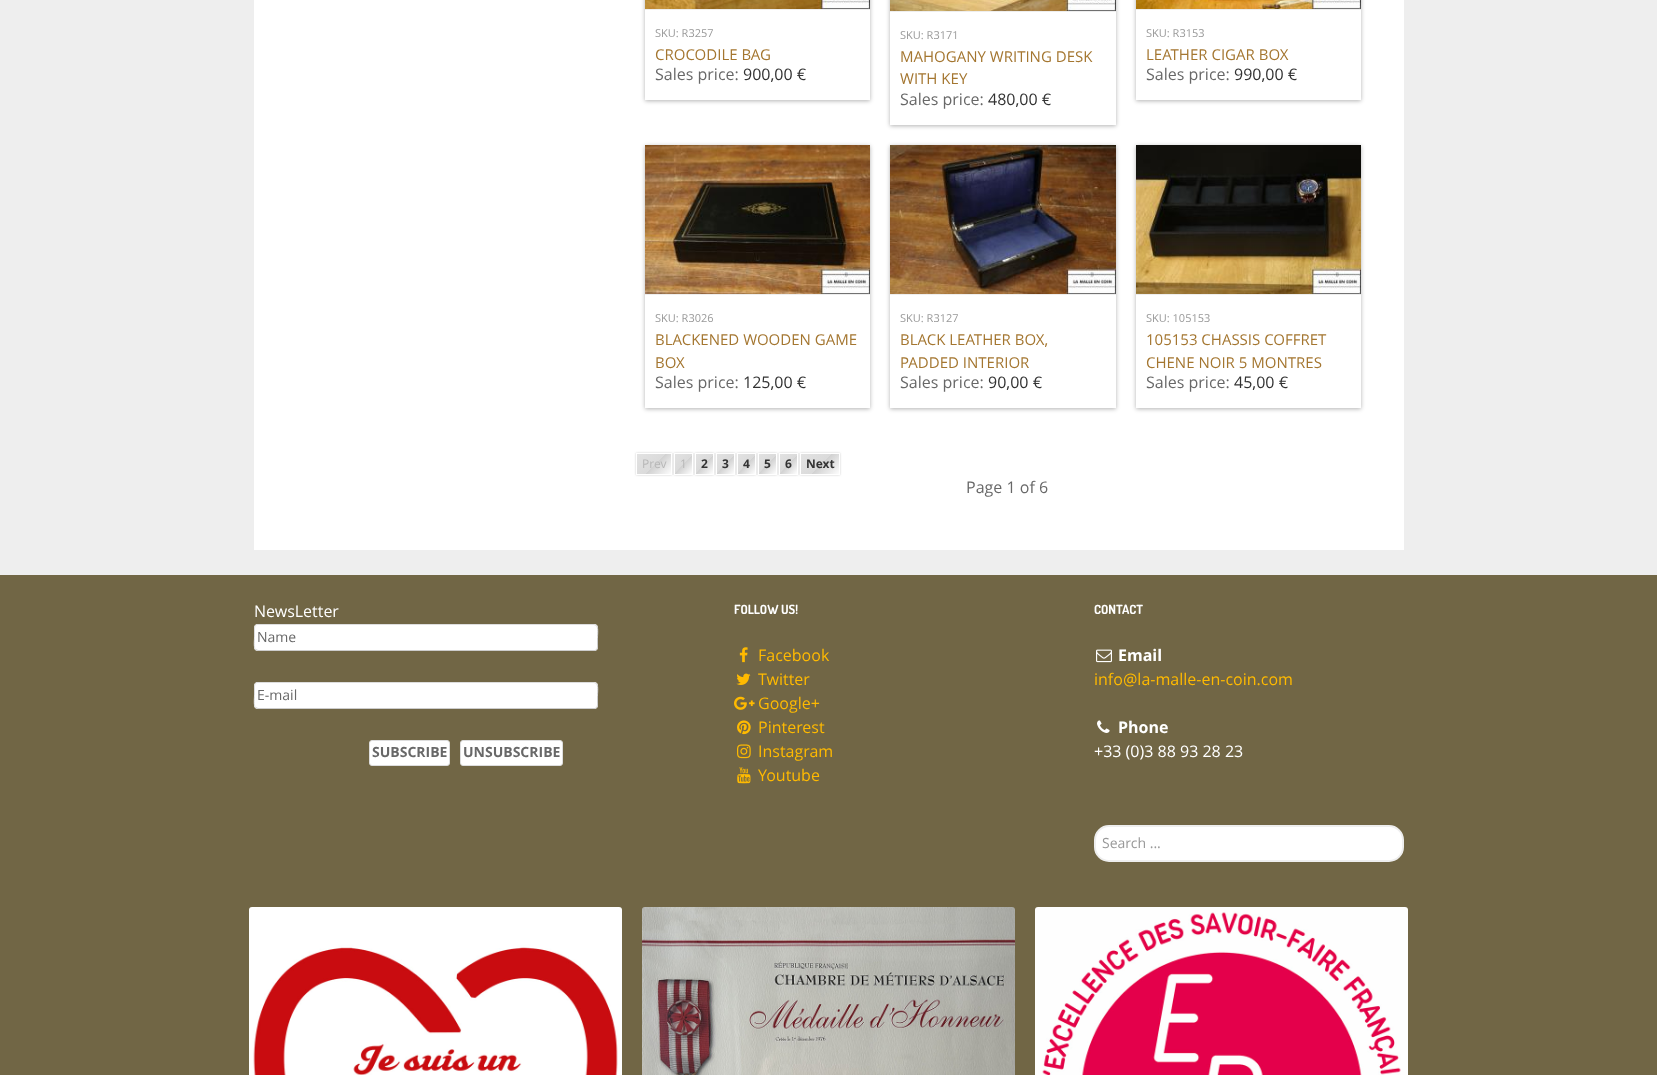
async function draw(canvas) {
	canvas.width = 1657;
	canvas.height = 1075;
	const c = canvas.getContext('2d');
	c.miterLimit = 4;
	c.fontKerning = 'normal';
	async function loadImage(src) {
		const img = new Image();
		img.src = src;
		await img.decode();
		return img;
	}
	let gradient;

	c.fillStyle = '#eee';
	c.fillRect(0, 0, 1657, 1075);
	c.fillStyle = '#fff';
	c.fillRect(254, 0, 1150, 550);
	c.save();
	c.beginPath();
	c.moveTo(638, 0);
	c.lineTo(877, 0);
	c.lineTo(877, 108);
	c.lineTo(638, 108);
	c.closePath();
	c.moveTo(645, -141);
	c.lineTo(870, -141);
	c.lineTo(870, 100);
	c.lineTo(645, 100);
	c.closePath();
	c.clip('evenodd');
	c.fillStyle = '#0000004d';
	c.filter = 'blur(2px)';
	c.beginPath();
	c.rect(645, -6, 225, 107);
	c.fill();
	c.filter = 'none';
	c.restore();
	c.fillStyle = '#eee';
	c.fillRect(645, 9, 225, 1);
	c.drawImage(await loadImage('img1.png'), 645, 0, 225, 9);
	c.font = '11px Open Sans';
	c.fillStyle = '#999';
	c.fillText('SKU: R3257', 655, 37);
	c.font = '15px Open Sans';
	c.fillStyle = '#a47630';
	c.fillText('CROCODILE BAG', 655, 60);
	c.font = '16px Open Sans';
	c.fillStyle = '#686868';
	c.fillText('Sales price:', 655, 80);
	c.fillStyle = '#333';
	c.fillText('900,00 €', 743, 80);
	c.save();
	c.beginPath();
	c.moveTo(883, 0);
	c.lineTo(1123, 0);
	c.lineTo(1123, 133);
	c.lineTo(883, 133);
	c.closePath();
	c.moveTo(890, -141);
	c.lineTo(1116, -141);
	c.lineTo(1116, 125);
	c.lineTo(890, 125);
	c.closePath();
	c.clip('evenodd');
	c.fillStyle = '#0000004d';
	c.filter = 'blur(2px)';
	c.beginPath();
	c.rect(890, -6, 226, 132);
	c.fill();
	c.filter = 'none';
	c.restore();
	c.fillStyle = '#eee';
	c.fillRect(890, 11, 226, 1);
	c.drawImage(await loadImage('img2.png'), 890, 0, 226, 11);
	c.font = '11px Open Sans';
	c.fillStyle = '#999';
	c.fillText('SKU: R3171', 900, 39);
	c.font = '15px Open Sans';
	c.fillStyle = '#a47630';
	c.fillText('MAHOGANY WRITING DESK', 900, 62);
	c.fillText('WITH KEY', 900, 84);
	c.font = '16px Open Sans';
	c.fillStyle = '#686868';
	c.fillText('Sales price:', 900, 105);
	c.fillStyle = '#333';
	c.fillText('480,00 €', 988, 105);
	c.save();
	c.beginPath();
	c.moveTo(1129, 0);
	c.lineTo(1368, 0);
	c.lineTo(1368, 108);
	c.lineTo(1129, 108);
	c.closePath();
	c.moveTo(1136, -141);
	c.lineTo(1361, -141);
	c.lineTo(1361, 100);
	c.lineTo(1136, 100);
	c.closePath();
	c.clip('evenodd');
	c.fillStyle = '#0000004d';
	c.filter = 'blur(2px)';
	c.beginPath();
	c.rect(1136, -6, 225, 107);
	c.fill();
	c.filter = 'none';
	c.restore();
	c.fillStyle = '#eee';
	c.fillRect(1136, 9, 225, 1);
	c.drawImage(await loadImage('img3.png'), 1136, 0, 225, 9);
	c.font = '11px Open Sans';
	c.fillStyle = '#999';
	c.fillText('SKU: R3153', 1146, 37);
	c.font = '15px Open Sans';
	c.fillStyle = '#a47630';
	c.fillText('LEATHER CIGAR BOX', 1146, 60);
	c.font = '16px Open Sans';
	c.fillStyle = '#686868';
	c.fillText('Sales price:', 1146, 80);
	c.fillStyle = '#333';
	c.fillText('990,00 €', 1234, 80);
	c.save();
	c.beginPath();
	c.moveTo(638, 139);
	c.lineTo(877, 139);
	c.lineTo(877, 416);
	c.lineTo(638, 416);
	c.closePath();
	c.moveTo(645, 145);
	c.lineTo(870, 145);
	c.lineTo(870, 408);
	c.lineTo(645, 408);
	c.closePath();
	c.clip('evenodd');
	c.fillStyle = '#0000004d';
	c.filter = 'blur(2px)';
	c.beginPath();
	c.rect(645, 146, 225, 263);
	c.fill();
	c.filter = 'none';
	c.restore();
	c.fillStyle = '#eee';
	c.fillRect(645, 294, 225, 1);
	c.drawImage(await loadImage('img4.png'), 645, 145, 225, 149);
	c.font = '11px Open Sans';
	c.fillStyle = '#999';
	c.fillText('SKU: R3026', 655, 322);
	c.font = '15px Open Sans';
	c.fillStyle = '#a47630';
	c.fillText('BLACKENED WOODEN GAME', 655, 345);
	c.fillText('BOX', 655, 368);
	c.font = '16px Open Sans';
	c.fillStyle = '#686868';
	c.fillText('Sales price:', 655, 388);
	c.fillStyle = '#333';
	c.fillText('125,00 €', 743, 388);
	c.save();
	c.beginPath();
	c.moveTo(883, 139);
	c.lineTo(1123, 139);
	c.lineTo(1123, 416);
	c.lineTo(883, 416);
	c.closePath();
	c.moveTo(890, 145);
	c.lineTo(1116, 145);
	c.lineTo(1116, 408);
	c.lineTo(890, 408);
	c.closePath();
	c.clip('evenodd');
	c.fillStyle = '#0000004d';
	c.filter = 'blur(2px)';
	c.beginPath();
	c.rect(890, 146, 226, 263);
	c.fill();
	c.filter = 'none';
	c.restore();
	c.fillStyle = '#eee';
	c.fillRect(890, 294, 226, 1);
	c.drawImage(await loadImage('img5.png'), 890, 145, 226, 149);
	c.font = '11px Open Sans';
	c.fillStyle = '#999';
	c.fillText('SKU: R3127', 900, 322);
	c.font = '15px Open Sans';
	c.fillStyle = '#a47630';
	c.fillText('BLACK LEATHER BOX,', 900, 345);
	c.fillText('PADDED INTERIOR', 900, 368);
	c.font = '16px Open Sans';
	c.fillStyle = '#686868';
	c.fillText('Sales price:', 900, 388);
	c.fillStyle = '#333';
	c.fillText('90,00 €', 988, 388);
	c.save();
	c.beginPath();
	c.moveTo(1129, 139);
	c.lineTo(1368, 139);
	c.lineTo(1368, 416);
	c.lineTo(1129, 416);
	c.closePath();
	c.moveTo(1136, 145);
	c.lineTo(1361, 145);
	c.lineTo(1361, 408);
	c.lineTo(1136, 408);
	c.closePath();
	c.clip('evenodd');
	c.fillStyle = '#0000004d';
	c.filter = 'blur(2px)';
	c.beginPath();
	c.rect(1136, 146, 225, 263);
	c.fill();
	c.filter = 'none';
	c.restore();
	c.fillStyle = '#eee';
	c.fillRect(1136, 294, 225, 1);
	c.drawImage(await loadImage('img6.png'), 1136, 145, 225, 149);
	c.font = '11px Open Sans';
	c.fillStyle = '#999';
	c.fillText('SKU: 105153', 1146, 322);
	c.font = '15px Open Sans';
	c.fillStyle = '#a47630';
	c.fillText('105153 CHASSIS COFFRET', 1146, 345);
	c.fillText('CHENE NOIR 5 MONTRES', 1146, 368);
	c.font = '16px Open Sans';
	c.fillStyle = '#686868';
	c.fillText('Sales price:', 1146, 388);
	c.fillStyle = '#333';
	c.fillText('45,00 €', 1234, 388);
	c.fillStyle = '#cdcdcd';
	c.filter = 'blur(1px)';
	c.beginPath();
	c.rect(636, 453, 36, 22);
	c.fill();
	c.filter = 'none';
	gradient = c.createLinearGradient(641, 451, 668, 478);
	gradient.addColorStop(0, '#e2e2e2');
	gradient.addColorStop(0.5, '#dbdbdb');
	gradient.addColorStop(0.51, '#d1d1d1');
	gradient.addColorStop(1, '#fefefe');
	c.fillStyle = gradient;
	c.fillRect(637, 454, 34, 20);
	c.strokeStyle = '#fff';
	c.strokeRect(636.5, 453.5, 35, 21);
	c.font = '12px Open Sans';
	c.fillStyle = '#b7b7b7';
	c.fillText('Prev', 642, 468);
	c.fillStyle = '#cdcdcd';
	c.filter = 'blur(1px)';
	c.beginPath();
	c.rect(674, 453, 19, 22);
	c.fill();
	c.filter = 'none';
	gradient = c.createLinearGradient(674, 455, 693, 473);
	gradient.addColorStop(0, '#e2e2e2');
	gradient.addColorStop(0.5, '#dbdbdb');
	gradient.addColorStop(0.51, '#d1d1d1');
	gradient.addColorStop(1, '#fefefe');
	c.fillStyle = gradient;
	c.fillRect(675, 454, 17, 20);
	c.strokeRect(674.5, 453.5, 18, 21);
	c.fillStyle = '#b7b7b7';
	c.fillText('1', 680, 468);
	c.fillStyle = '#cdcdcd';
	c.filter = 'blur(1px)';
	c.beginPath();
	c.rect(695, 453, 19, 22);
	c.fill();
	c.filter = 'none';
	gradient = c.createLinearGradient(695, 455, 714, 473);
	gradient.addColorStop(0, '#e2e2e2');
	gradient.addColorStop(0.5, '#dbdbdb');
	gradient.addColorStop(0.51, '#d1d1d1');
	gradient.addColorStop(1, '#fefefe');
	c.fillStyle = gradient;
	c.fillRect(696, 454, 17, 20);
	c.strokeRect(695.5, 453.5, 18, 21);
	c.font = 'bold 12px Open Sans';
	c.fillStyle = '#333';
	c.fillText('2', 701, 468);
	c.fillStyle = '#cdcdcd';
	c.filter = 'blur(1px)';
	c.beginPath();
	c.rect(716, 453, 19, 22);
	c.fill();
	c.filter = 'none';
	gradient = c.createLinearGradient(716, 455, 735, 473);
	gradient.addColorStop(0, '#e2e2e2');
	gradient.addColorStop(0.5, '#dbdbdb');
	gradient.addColorStop(0.51, '#d1d1d1');
	gradient.addColorStop(1, '#fefefe');
	c.fillStyle = gradient;
	c.fillRect(717, 454, 17, 20);
	c.strokeRect(716.5, 453.5, 18, 21);
	c.fillStyle = '#333';
	c.fillText('3', 722, 468);
	c.fillStyle = '#cdcdcd';
	c.filter = 'blur(1px)';
	c.beginPath();
	c.rect(737, 453, 19, 22);
	c.fill();
	c.filter = 'none';
	gradient = c.createLinearGradient(737, 455, 756, 473);
	gradient.addColorStop(0, '#e2e2e2');
	gradient.addColorStop(0.5, '#dbdbdb');
	gradient.addColorStop(0.51, '#d1d1d1');
	gradient.addColorStop(1, '#fefefe');
	c.fillStyle = gradient;
	c.fillRect(738, 454, 17, 20);
	c.strokeRect(737.5, 453.5, 18, 21);
	c.fillStyle = '#333';
	c.fillText('4', 743, 468);
	c.fillStyle = '#cdcdcd';
	c.filter = 'blur(1px)';
	c.beginPath();
	c.rect(758, 453, 19, 22);
	c.fill();
	c.filter = 'none';
	gradient = c.createLinearGradient(758, 455, 777, 473);
	gradient.addColorStop(0, '#e2e2e2');
	gradient.addColorStop(0.5, '#dbdbdb');
	gradient.addColorStop(0.51, '#d1d1d1');
	gradient.addColorStop(1, '#fefefe');
	c.fillStyle = gradient;
	c.fillRect(759, 454, 17, 20);
	c.strokeRect(758.5, 453.5, 18, 21);
	c.fillStyle = '#333';
	c.fillText('5', 764, 468);
	c.fillStyle = '#cdcdcd';
	c.filter = 'blur(1px)';
	c.beginPath();
	c.rect(779, 453, 19, 22);
	c.fill();
	c.filter = 'none';
	gradient = c.createLinearGradient(779, 455, 798, 473);
	gradient.addColorStop(0, '#e2e2e2');
	gradient.addColorStop(0.5, '#dbdbdb');
	gradient.addColorStop(0.51, '#d1d1d1');
	gradient.addColorStop(1, '#fefefe');
	c.fillStyle = gradient;
	c.fillRect(780, 454, 17, 20);
	c.strokeRect(779.5, 453.5, 18, 21);
	c.fillStyle = '#333';
	c.fillText('6', 785, 468);
	c.fillStyle = '#cdcdcd';
	c.filter = 'blur(1px)';
	c.beginPath();
	c.rect(800, 453, 40, 22);
	c.fill();
	c.filter = 'none';
	gradient = c.createLinearGradient(806, 450, 835, 479);
	gradient.addColorStop(0, '#e2e2e2');
	gradient.addColorStop(0.5, '#dbdbdb');
	gradient.addColorStop(0.51, '#d1d1d1');
	gradient.addColorStop(1, '#fefefe');
	c.fillStyle = gradient;
	c.fillRect(801, 454, 38, 20);
	c.strokeRect(800.5, 453.5, 39, 21);
	c.fillStyle = '#333';
	c.fillText('Next', 806, 468);
	c.font = '16px Open Sans';
	c.fillStyle = '#686868';
	c.fillText('Page 1 of 6', 966, 493);
	c.fillStyle = '#716645';
	c.fillRect(0, 575, 1657, 500);
	c.fillStyle = '#fff';
	c.fillText('NewsLetter', 254, 617);
	c.beginPath();
	c.roundRect(254, 624, 344, 27, 4);
	c.fill();
	c.beginPath();
	c.moveTo(596.5, 625.5);
	c.bezierCurveTo(598.5, 627.5, 597.5, 635, 597.5, 637.5);
	c.lineTo(597.5, 644);
	c.bezierCurveTo(597.5, 646.5, 598, 649.5, 595, 650.5);
	c.lineTo(258, 650.5);
	c.lineTo(255.5, 649.5);
	c.strokeStyle = '#ccc';
	c.stroke();
	c.beginPath();
	c.moveTo(255.5, 649.5);
	c.bezierCurveTo(253.5, 647.5, 254.5, 640, 254.5, 637.5);
	c.lineTo(254.5, 631);
	c.bezierCurveTo(254.5, 628.5, 254, 625.5, 257, 624.5);
	c.lineTo(594, 624.5);
	c.lineTo(596.5, 625.5);
	c.strokeStyle = '#ddd';
	c.stroke();
	c.font = '14px Open Sans';
	c.fillStyle = '#686868';
	c.fillText('Name', 257, 642);
	c.fillStyle = '#fff';
	c.beginPath();
	c.roundRect(254, 682, 344, 27, 4);
	c.fill();
	c.beginPath();
	c.moveTo(596.5, 683.5);
	c.bezierCurveTo(598.5, 685.5, 597.5, 693, 597.5, 695.5);
	c.lineTo(597.5, 702);
	c.bezierCurveTo(597.5, 704.5, 598, 707.5, 595, 708.5);
	c.lineTo(258, 708.5);
	c.lineTo(255.5, 707.5);
	c.strokeStyle = '#ccc';
	c.stroke();
	c.beginPath();
	c.moveTo(255.5, 707.5);
	c.bezierCurveTo(253.5, 705.5, 254.5, 698, 254.5, 695.5);
	c.lineTo(254.5, 689);
	c.bezierCurveTo(254.5, 686.5, 254, 683.5, 257, 682.5);
	c.lineTo(594, 682.5);
	c.lineTo(596.5, 683.5);
	c.strokeStyle = '#ddd';
	c.stroke();
	c.fillStyle = '#686868';
	c.fillText('E-mail', 257, 700);
	c.fillStyle = '#fff';
	c.beginPath();
	c.roundRect(369.5, 740.5, 80, 25, 2.5);
	c.fill();
	c.stroke();
	c.font = 'bold 14px Open Sans';
	c.fillStyle = '#686868';
	c.fillText('SUBSCRIBE', 372, 757);
	c.fillStyle = '#fff';
	c.beginPath();
	c.roundRect(460.5, 740.5, 102, 25, 2.5);
	c.fill();
	c.stroke();
	c.fillStyle = '#686868';
	c.fillText('UNSUBSCRIBE', 463, 757);
	c.font = 'bold 12.75px Dosis';
	c.fillStyle = '#fff';
	c.fillText('FOLLOW US!', 734, 614);
	c.drawImage(await loadImage('img7.png'), 739, 647, 9, 16);
	c.font = '16px Open Sans';
	c.fillStyle = '#ffba00';
	c.fillText('Facebook', 758, 661);
	c.drawImage(await loadImage('img8.png'), 736, 673, 15, 12);
	c.fillText('Twitter', 758, 685);
	c.drawImage(await loadImage('img9.png'), 734, 696, 21, 14);
	c.fillText('Google+', 758, 709);
	c.drawImage(await loadImage('img10.png'), 737, 720, 14, 15);
	c.fillText('Pinterest', 758, 733);
	c.drawImage(await loadImage('img11.png'), 737, 744, 14, 15);
	c.fillText('Instagram', 758, 757);
	c.drawImage(await loadImage('img12.png'), 737, 767, 14, 17);
	c.fillText('Youtube', 758, 781);
	c.font = 'bold 12.75px Dosis';
	c.fillStyle = '#fff';
	c.fillText('CONTACT', 1094, 614);
	c.drawImage(await loadImage('img13.png'), 1096, 649, 16, 14);
	c.font = 'bold 16px Open Sans';
	c.fillText('Email', 1118, 661);
	c.font = '16px Open Sans';
	c.fillStyle = '#ffba00';
	c.fillText('info@la-malle-en-coin.com', 1094, 685);
	c.drawImage(await loadImage('img14.png'), 1097, 720, 13, 13);
	c.font = 'bold 16px Open Sans';
	c.fillStyle = '#fff';
	c.fillText('Phone', 1118, 733);
	c.font = '16px Open Sans';
	c.fillText('+33 (0)3 88 93 28 23', 1094, 757);
	c.beginPath();
	c.roundRect(1095, 826, 308, 35, 14);
	c.fill();
	c.strokeStyle = '#eee';
	c.lineWidth = 2;
	c.stroke();
	c.font = '14px Open Sans';
	c.fillStyle = '#999';
	c.fillText('Search ...', 1102, 848);
	c.drawImage(await loadImage('img15.png'), 249, 907, 373, 168);
	c.drawImage(await loadImage('img16.png'), 642, 907, 373, 168);
	c.drawImage(await loadImage('img17.png'), 1035, 907, 373, 168);
}

draw(document.querySelector('canvas'));
